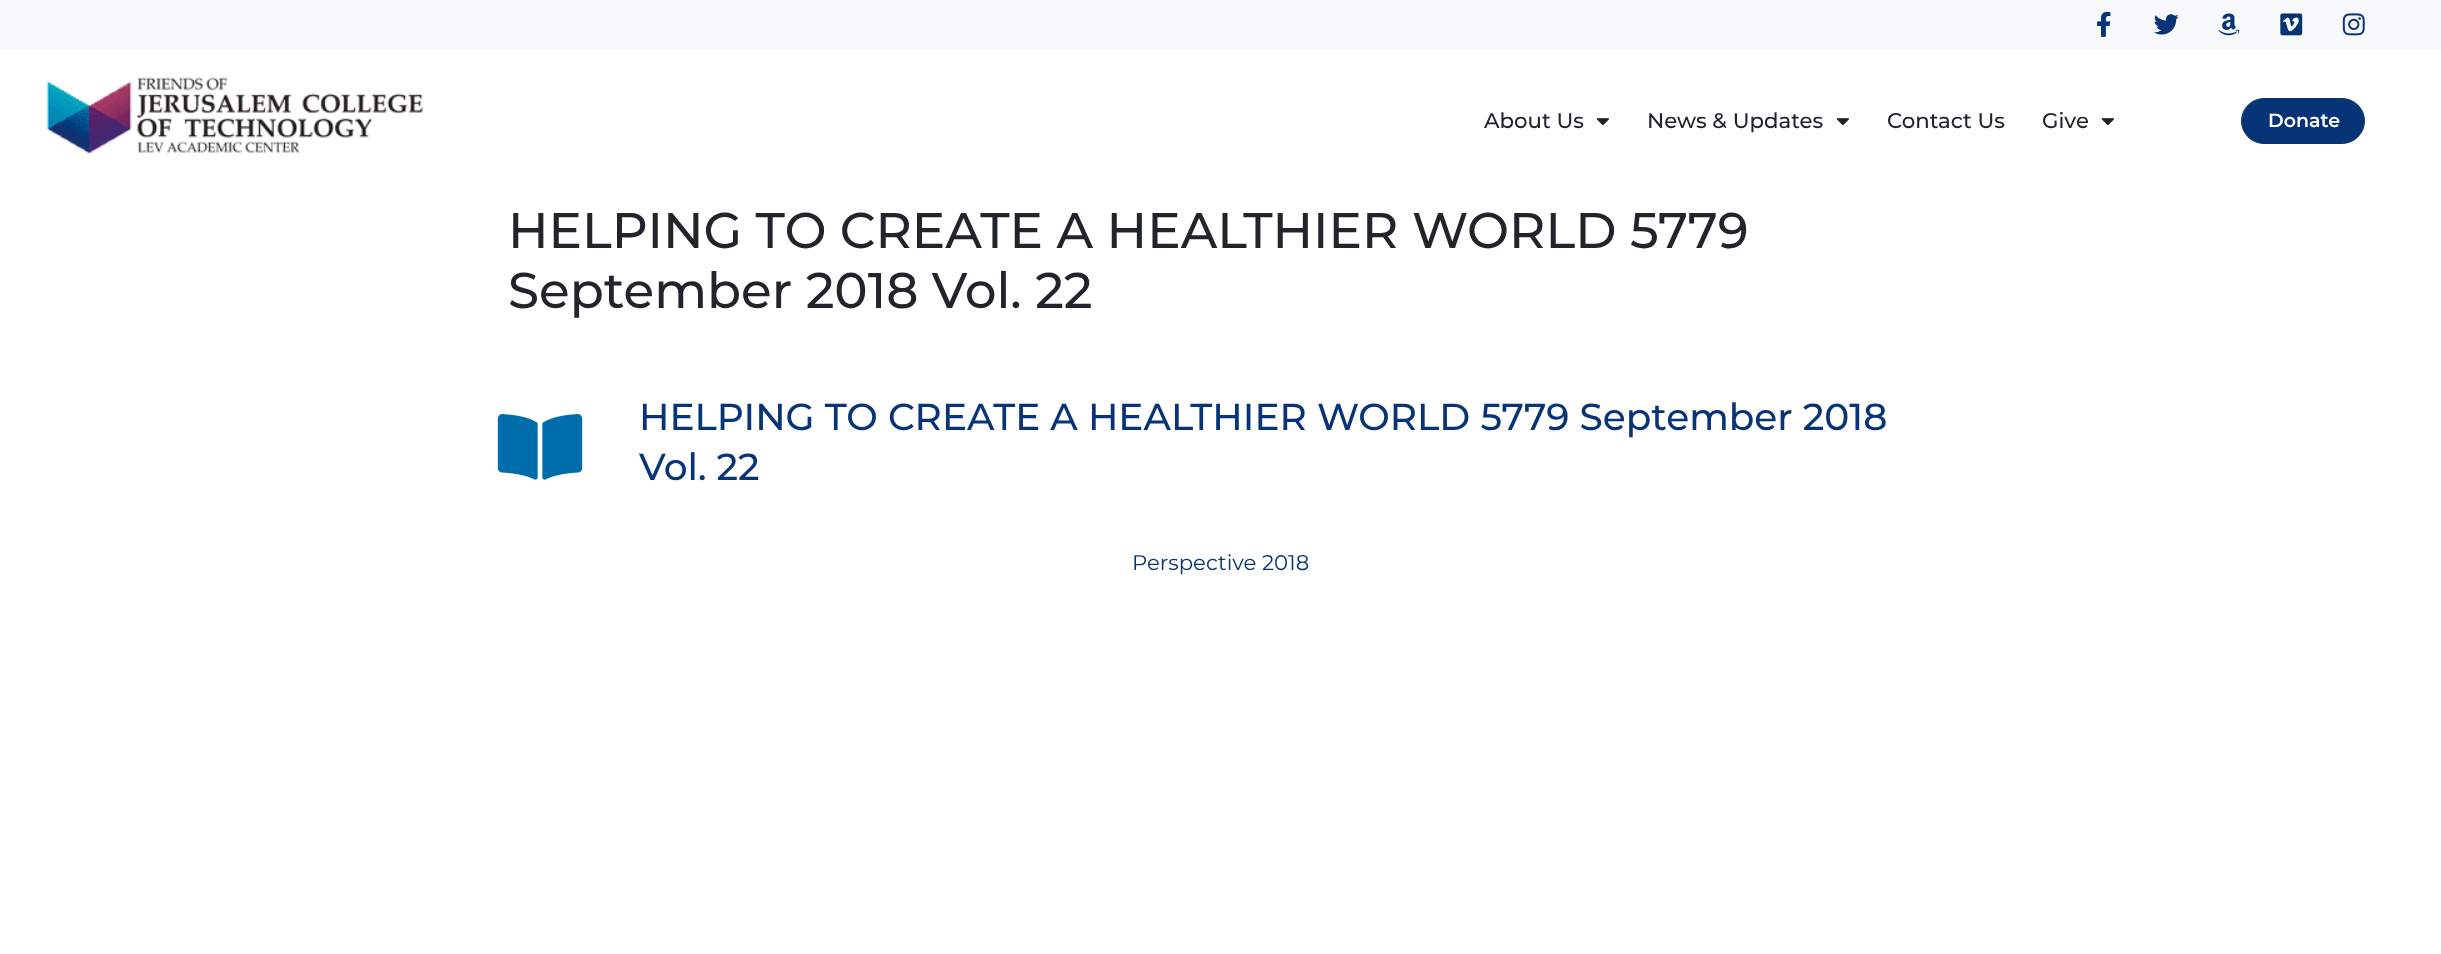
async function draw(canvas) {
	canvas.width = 2441;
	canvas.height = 954;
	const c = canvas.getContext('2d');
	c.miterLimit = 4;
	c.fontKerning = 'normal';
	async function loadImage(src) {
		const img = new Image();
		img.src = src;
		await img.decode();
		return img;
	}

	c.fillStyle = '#fff';
	c.fillRect(0, 0, 2441, 954);
	c.fillStyle = '#f8f9fa';
	c.fillRect(0, 0, 2441, 50);
	c.drawImage(await loadImage('img1.png'), 2097, 11, 14, 26);
	c.drawImage(await loadImage('img2.png'), 2154, 14, 25, 21);
	c.drawImage(await loadImage('img3.png'), 2218, 13, 22, 23);
	c.drawImage(await loadImage('img4.png'), 2280, 13, 23, 23);
	c.drawImage(await loadImage('img5.png'), 2342, 13, 23, 23);
	c.drawImage(await loadImage('img6.png'), 47, 77, 376, 77);
	c.font = '500 21.25px Montserrat';
	c.fillStyle = '#212529';
	c.fillText('About Us', 1484, 128);
	c.drawImage(await loadImage('img7.png'), 1596, 118, 13, 8);
	c.fillText('News & Updates', 1647, 128);
	c.drawImage(await loadImage('img7.png'), 1836, 118, 13, 8);
	c.fillText('Contact Us', 1887, 128);
	c.fillText('Give', 2042, 128);
	c.drawImage(await loadImage('img7.png'), 2101, 118, 13, 8);
	c.fillStyle = '#063476';
	c.beginPath();
	c.roundRect(2241.5, 98.5, 123, 45, 22.5);
	c.fill();
	c.strokeStyle = '#063476';
	c.stroke();
	c.font = '600 19px Montserrat';
	c.fillStyle = '#fff';
	c.fillText('Donate', 2268, 127);
	c.font = '500 50px Montserrat';
	c.fillStyle = '#212529';
	c.fillText('HELPING TO CREATE A HEALTHIER WORLD 5779', 508, 248);
	c.fillText('September 2018 Vol. 22', 508, 308);
	c.drawImage(await loadImage('img8.png'), 497, 414, 86, 66);
	c.font = '500 37.5px Montserrat';
	c.fillStyle = '#063476';
	c.fillText('HELPING TO CREATE A HEALTHIER WORLD 5779 September 2018', 639, 430);
	c.fillText('Vol. 22', 639, 480);
	c.font = '21.25px Montserrat';
	c.fillText('Perspective 2018', 1132, 570);
}

draw(document.querySelector('canvas'));
